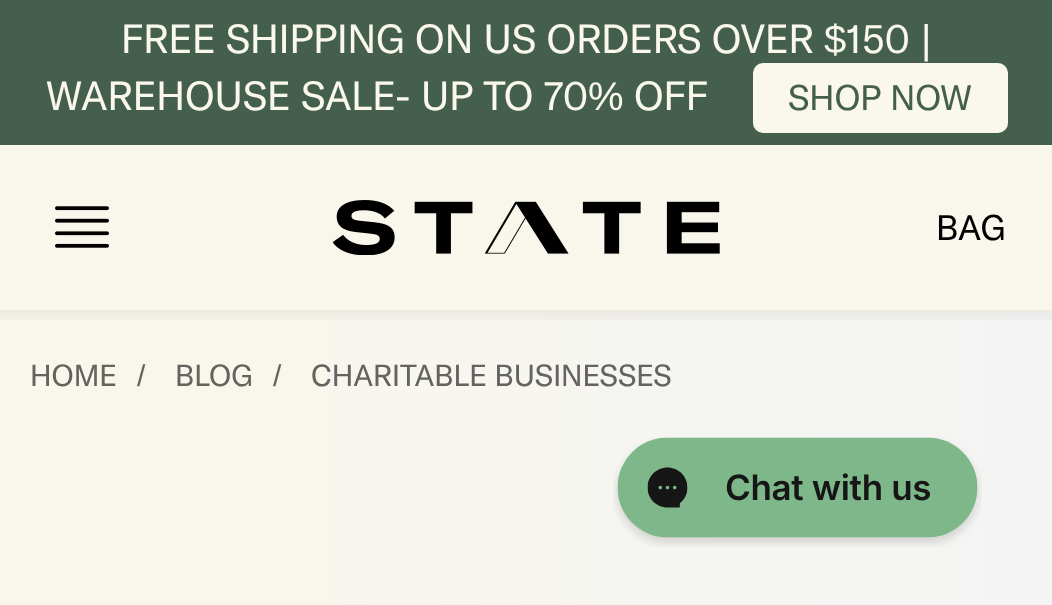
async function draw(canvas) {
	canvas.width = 1052;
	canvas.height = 605;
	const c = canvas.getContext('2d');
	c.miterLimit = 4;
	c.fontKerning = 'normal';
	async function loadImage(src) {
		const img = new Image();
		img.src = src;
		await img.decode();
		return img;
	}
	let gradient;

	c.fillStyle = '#f9f7ec';
	c.fillRect(0, 0, 1052, 605);
	c.fillStyle = '#455f4f';
	c.fillRect(0, 0, 1052, 145);
	c.font = '40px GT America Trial';
	c.fillStyle = '#faf7ec';
	c.fillText('FREE SHIPPING ON US ORDERS OVER', 121, 53);
	c.font = '40px Liberation Sans';
	c.fillText('$', 824, 53);
	c.font = '40px GT America Trial';
	c.fillText('150', 846, 53);
	c.font = '40px Liberation Sans';
	c.fillText('|', 921, 53);
	c.font = '40px GT America Trial';
	c.fillText('WAREHOUSE SALE- UP TO 70', 46, 110);
	c.font = '40px Liberation Sans';
	c.fillText('%', 588, 110);
	c.font = '40px GT America Trial';
	c.fillText('OFF', 634, 110);
	c.beginPath();
	c.roundRect(753, 63, 255, 70, 10);
	c.fill();
	c.font = '35px GT America Trial';
	c.fillStyle = '#455f4f';
	c.fillText('SHOP NOW', 788, 110);
	c.drawImage(await loadImage('img1.png'), 55, 206, 54, 42);
	c.drawImage(await loadImage('img2.png'), 333, 200, 387, 55);
	c.fillStyle = '#000';
	c.fillText('BAG', 936, 240);
	gradient = c.createLinearGradient(0, 385, 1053, 385);
	gradient.addColorStop(0, '#f9f7ec');
	gradient.addColorStop(1, '#f4f4f4');
	c.fillStyle = gradient;
	c.fillRect(329, 313, 723, 145);
	gradient = c.createLinearGradient(526, 310, 526, 328);
	gradient.addColorStop(0, '#0000000d');
	gradient.addColorStop(1, '#00000000');
	c.fillStyle = gradient;
	c.fillRect(0, 310, 1052, 10);
	c.font = '30px GT America Trial';
	c.fillStyle = '#64635f';
	c.fillText('HOME', 30, 386);
	c.font = '30px Liberation Sans';
	c.fillText('/', 137, 386);
	c.font = '30px GT America Trial';
	c.fillText('BLOG', 175, 386);
	c.font = '30px Liberation Sans';
	c.fillText('/', 273, 386);
	c.font = '30px GT America Trial';
	c.fillText('CHARITABLE BUSINESSES', 311, 386);
	gradient = c.createLinearGradient(0, 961, 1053, 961);
	gradient.addColorStop(0, '#f9f7ec');
	gradient.addColorStop(1, '#f4f4f4');
	c.fillStyle = gradient;
	c.fillRect(329, 458, 723, 147);
	c.drawImage(await loadImage('img3.png'), 613, 437, 369, 110);
}

draw(document.querySelector('canvas'));
